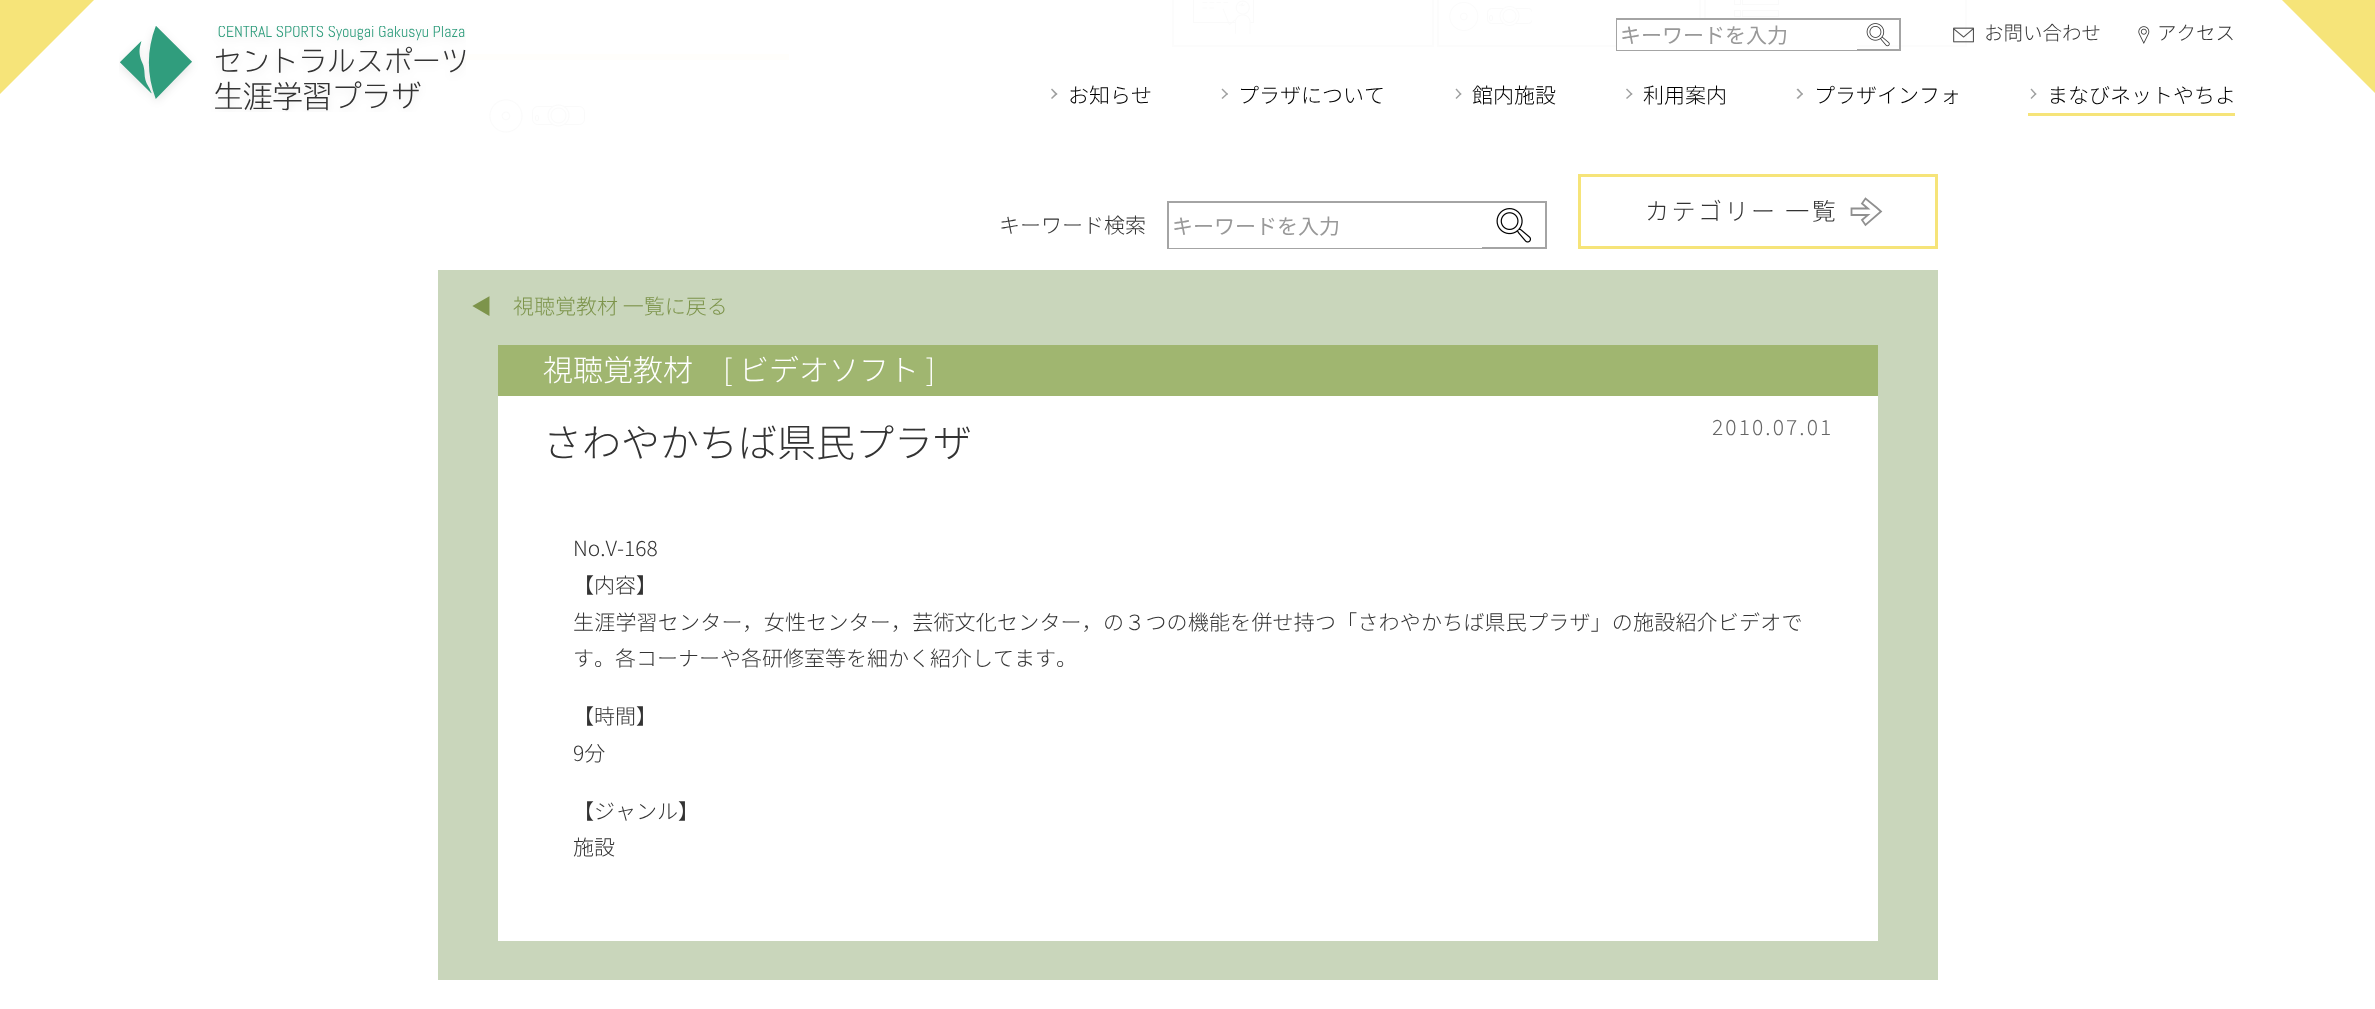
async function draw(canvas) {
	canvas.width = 2375;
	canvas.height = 1009;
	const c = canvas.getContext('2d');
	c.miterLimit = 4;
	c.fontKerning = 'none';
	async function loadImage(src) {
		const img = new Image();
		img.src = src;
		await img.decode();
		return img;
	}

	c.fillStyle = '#fff';
	c.fillRect(0, 0, 2375, 1009);
	c.fillStyle = '#f6e479';
	c.beginPath();
	c.moveTo(0, 94);
	c.lineTo(0, -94);
	c.lineTo(94, 0);
	c.closePath();
	c.fill();
	c.fillStyle = '#fffefb';
	c.fillRect(441, 54, 348, 6);
	c.drawImage(await loadImage('img1.png'), 119, 26, 347, 86);
	c.drawImage(await loadImage('img7.png'), 1734, 0, 45, 17);
	c.strokeStyle = '#fcfcfc';
	c.lineWidth = 2;
	c.strokeRect(1705, -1, 261, 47);
	c.drawImage(await loadImage('img2.png'), 1953, 27, 21, 16);
	c.font = '300 19.5px Noto Sans JP';
	c.fillStyle = '#333';
	c.fillText('お問い合わせ', 1984, 40);
	c.drawImage(await loadImage('img3.png'), 2138, 26, 12, 18);
	c.fillText('アクセス', 2157, 40);
	c.fillStyle = '#9fa0a0';
	c.beginPath();
	c.moveTo(1052, 88.5);
	c.lineTo(1057.5, 94);
	c.lineTo(1056, 95);
	c.lineTo(1051, 89.5);
	c.closePath();
	c.fill();
	c.beginPath();
	c.moveTo(1056, 93);
	c.lineTo(1057.5, 94);
	c.lineTo(1052, 99);
	c.lineTo(1051, 98);
	c.closePath();
	c.fill();
	c.font = '300 21px Noto Sans JP';
	c.fillStyle = '#000';
	c.fillText('お知らせ', 1068, 103);
	c.fillStyle = '#9fa0a0';
	c.beginPath();
	c.moveTo(1222.5, 88.5);
	c.lineTo(1228, 94);
	c.lineTo(1227, 95);
	c.lineTo(1221.5, 89.5);
	c.closePath();
	c.fill();
	c.beginPath();
	c.moveTo(1227, 93);
	c.lineTo(1228, 94);
	c.lineTo(1222.5, 99);
	c.lineTo(1221.5, 98);
	c.closePath();
	c.fill();
	c.fillStyle = '#000';
	c.fillText('プラザについて', 1238, 103);
	c.fillStyle = '#9fa0a0';
	c.beginPath();
	c.moveTo(1456.5, 88.5);
	c.lineTo(1461.5, 94);
	c.lineTo(1460.5, 95);
	c.lineTo(1455.5, 89.5);
	c.closePath();
	c.fill();
	c.beginPath();
	c.moveTo(1460.5, 93);
	c.lineTo(1461.5, 94);
	c.lineTo(1456.5, 99);
	c.lineTo(1455.5, 98);
	c.closePath();
	c.fill();
	c.fillStyle = '#000';
	c.fillText('館内施設', 1472, 103);
	c.fillStyle = '#9fa0a0';
	c.beginPath();
	c.moveTo(1627, 88.5);
	c.lineTo(1632.5, 94);
	c.lineTo(1631.5, 95);
	c.lineTo(1626, 89.5);
	c.closePath();
	c.fill();
	c.beginPath();
	c.moveTo(1631.5, 93);
	c.lineTo(1632.5, 94);
	c.lineTo(1627, 99);
	c.lineTo(1626, 98);
	c.closePath();
	c.fill();
	c.fillStyle = '#000';
	c.fillText('利用案内', 1643, 103);
	c.fillStyle = '#9fa0a0';
	c.beginPath();
	c.moveTo(1798, 88.5);
	c.lineTo(1803, 94);
	c.lineTo(1802, 95);
	c.lineTo(1796.5, 89.5);
	c.closePath();
	c.fill();
	c.beginPath();
	c.moveTo(1802, 93);
	c.lineTo(1803, 94);
	c.lineTo(1798, 99);
	c.lineTo(1796.5, 98);
	c.closePath();
	c.fill();
	c.fillStyle = '#000';
	c.fillText('プラザインフォ', 1814, 103);
	c.fillStyle = '#9fa0a0';
	c.beginPath();
	c.moveTo(2031.5, 88.5);
	c.lineTo(2036.5, 94);
	c.lineTo(2035.5, 95);
	c.lineTo(2030.5, 89.5);
	c.closePath();
	c.fill();
	c.beginPath();
	c.moveTo(2035.5, 93);
	c.lineTo(2036.5, 94);
	c.lineTo(2031.5, 99);
	c.lineTo(2030.5, 98);
	c.closePath();
	c.fill();
	c.fillStyle = '#000';
	c.fillText('まなびネットやちよ', 2047, 103);
	c.fillStyle = '#f6e479';
	c.fillRect(2028, 113, 207, 3);
	c.drawImage(await loadImage('img6.png'), 1449, 2, 83, 29);
	c.strokeRect(1438, -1, 262, 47);
	c.strokeStyle = '#a4a4a4';
	c.strokeRect(1617, 19, 283, 31);
	c.fillStyle = '#fff';
	c.fillRect(1617, 20, 240, 30);
	c.font = '21px Noto Sans JP';
	c.fillStyle = '#999';
	c.fillText('キーワードを入力', 1620, 43);
	c.drawImage(await loadImage('img4.png'), 1866, 23, 24, 24);
	c.fillStyle = '#f6e479';
	c.beginPath();
	c.moveTo(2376, -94);
	c.lineTo(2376, 94);
	c.lineTo(2282, 0);
	c.closePath();
	c.fill();
	c.drawImage(await loadImage('img5.png'), 1193, 0, 61, 34);
	c.strokeStyle = '#fcfcfc';
	c.strokeRect(1173, -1, 260, 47);
	c.drawImage(await loadImage('img8.png'), 489, 99, 96, 34);
	c.strokeStyle = '#f6e479';
	c.lineWidth = 3;
	c.strokeRect(1579.5, 175.5, 357, 72);
	c.letterSpacing = '2.5px';
	c.font = '300 24px Noto Sans JP';
	c.fillStyle = '#333';
	c.fillText('カテゴリー 一覧', 1645, 220);
	c.beginPath();
	c.moveTo(1876.5, 207.5);
	c.lineTo(1865.5, 198.5);
	c.lineTo(1862, 203.5);
	c.lineTo(1868, 208.5);
	c.lineTo(1851.5, 208.5);
	c.lineTo(1851.5, 215);
	c.lineTo(1868, 215);
	c.lineTo(1862, 220);
	c.lineTo(1865.5, 225);
	c.lineTo(1881, 211.5);
	c.closePath();
	c.strokeStyle = '#909090';
	c.lineWidth = 1.8;
	c.stroke();
	c.letterSpacing = '0px';
	c.font = '300 21px Noto Sans JP';
	c.fillText('キーワード検索', 999, 233);
	c.strokeStyle = '#a4a4a4';
	c.lineWidth = 2;
	c.strokeRect(1168, 202, 378, 46);
	c.fillStyle = '#fff';
	c.fillRect(1169, 247, 313, 1);
	c.font = '21px Noto Sans JP';
	c.fillStyle = '#999';
	c.fillText('キーワードを入力', 1172, 234);
	c.drawImage(await loadImage('img9.png'), 1496, 208, 35, 35);
	c.fillStyle = '#c9d6bb';
	c.fillRect(438, 270, 1500, 710);
	c.font = '300 21px Noto Sans JP';
	c.fillStyle = '#7d944b';
	c.fillText('◀　視聴覚教材 一覧に戻る', 471, 314);
	c.fillStyle = '#fff';
	c.fillRect(498, 396, 1380, 545);
	c.fillStyle = '#a0b670';
	c.fillRect(498, 345, 1380, 51);
	c.font = '300 30px Noto Sans JP';
	c.fillStyle = '#fff';
	c.fillText('視聴覚教材', 543, 381);
	c.fillText('[ ビデオソフト ]', 723, 381);
	c.font = '300 39px Noto Sans JP';
	c.fillStyle = '#333';
	c.fillText('さわやかちば県民プラザ', 543, 457);
	c.letterSpacing = '2.1px';
	c.font = '300 21px Noto Sans JP';
	c.fillStyle = '#666';
	c.fillText('2010.07.01', 1712, 435);
	c.letterSpacing = '0px';
	c.fillStyle = '#333';
	c.fillText('No.V-168', 573, 556);
	c.fillText('【内容】', 573, 593);
	c.letterSpacing = '0.2px';
	c.fillText('生涯学習センター，女性センター，芸術文化センター，の３つの機能を併せ持つ「さわやかちば県民プラザ」の施設紹介ビデオで', 573, 630);
	c.letterSpacing = '0px';
	for (const [text, x, y] of [
		['す。各コーナーや各研修室等を細かく紹介してます', 573, 666],
		['。', 1056, 666],
		['【時間】', 573, 724],
		['9分', 573, 761],
		['【ジャンル】', 573, 819],
		['施設', 573, 855],
	]) {
		c.fillText(text, x, y);
	}
}

draw(document.querySelector('canvas'));
